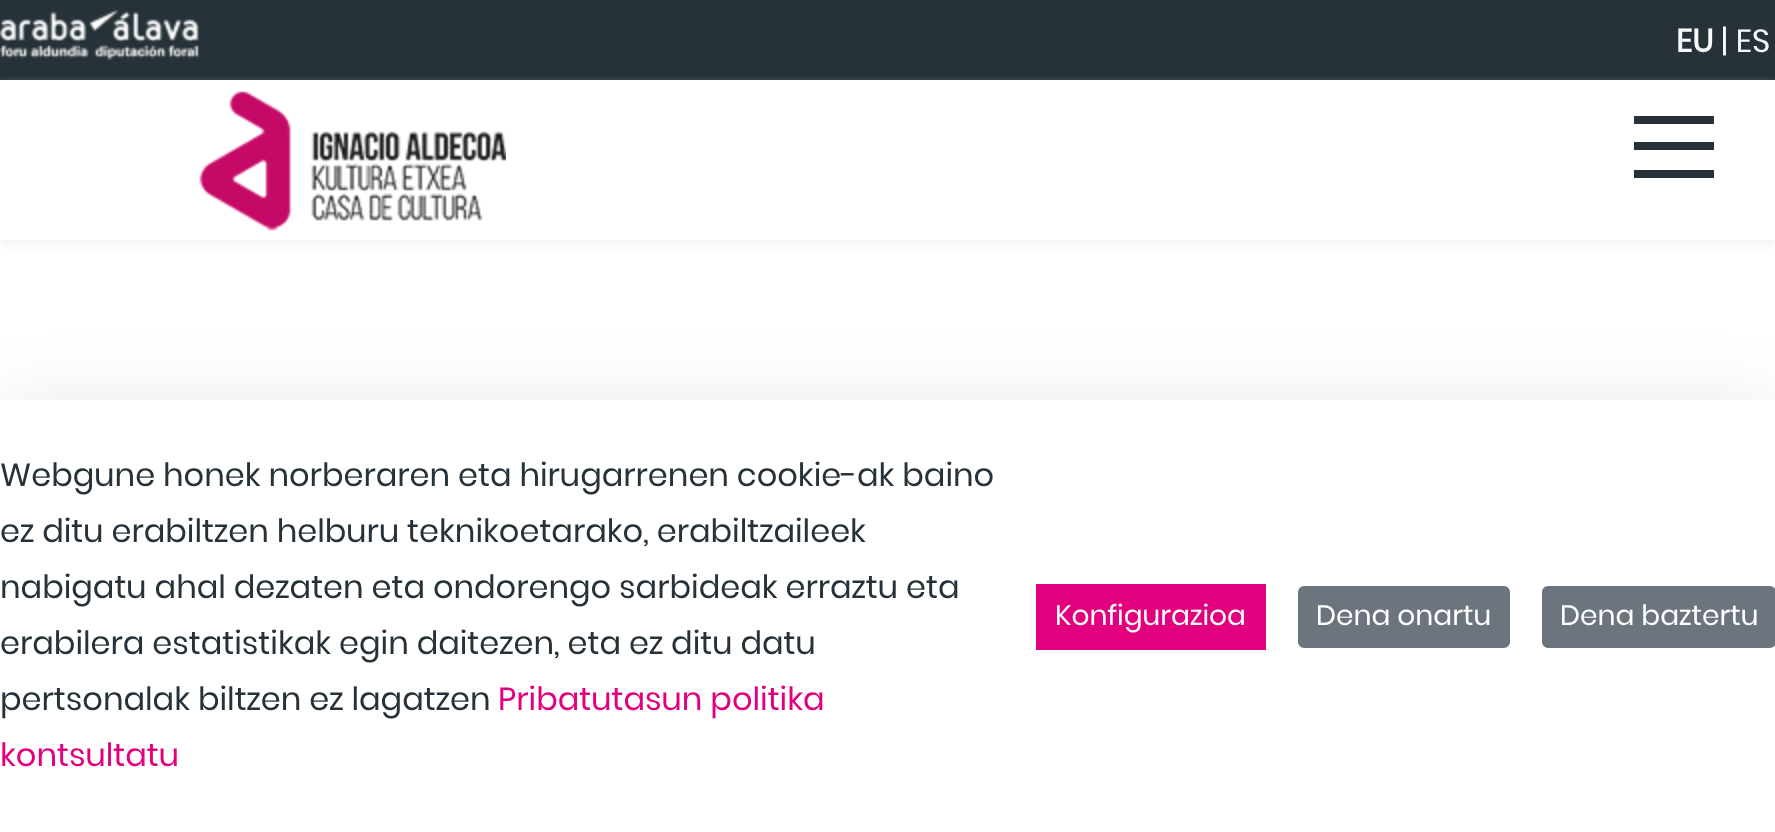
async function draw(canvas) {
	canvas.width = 1775;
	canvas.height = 832;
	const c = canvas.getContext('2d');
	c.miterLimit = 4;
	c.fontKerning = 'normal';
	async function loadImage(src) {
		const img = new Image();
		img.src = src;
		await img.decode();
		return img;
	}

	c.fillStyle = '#fff';
	c.fillRect(0, 0, 1775, 832);
	c.fillStyle = '#263238';
	c.fillRect(0, 0, 1775, 80);
	c.drawImage(await loadImage('img1.png'), 0, 9, 199, 51);
	c.font = 'bold 32px Poppins';
	c.fillStyle = '#f8f9fa';
	c.fillText('EU', 1676, 52);
	c.font = '32px Poppins';
	c.fillText('| ES', 1721, 52);
	c.save();
	c.beginPath();
	c.moveTo(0, 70);
	c.lineTo(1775, 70);
	c.lineTo(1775, 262);
	c.lineTo(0, 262);
	c.closePath();
	c.moveTo(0, 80);
	c.lineTo(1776, 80);
	c.lineTo(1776, 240);
	c.lineTo(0, 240);
	c.closePath();
	c.clip('evenodd');
	c.fillStyle = '#f5f5f5';
	c.filter = 'blur(5px)';
	c.beginPath();
	c.rect(0, 86, 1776, 160);
	c.fill();
	c.filter = 'none';
	c.restore();
	c.drawImage(await loadImage('img2.png'), 199, 91, 307, 140);
	for (const [x, y, w, h, color] of [
		[1634, 142, 80, 8, '#263238'],
		[1634, 116, 80, 8, '#263238'],
		[1634, 170, 80, 8, '#263238'],
	]) {
		c.fillStyle = color;
		c.fillRect(x, y, w, h);
	}
	c.fillStyle = '#0000002e';
	c.filter = 'blur(48px)';
	c.beginPath();
	c.rect(0, 432, 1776, 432);
	c.fill();
	c.filter = 'none';
	c.fillStyle = '#fff';
	c.fillRect(0, 400, 1775, 432);
	c.fillStyle = '#263238';
	for (const [text, x, y] of [
		['Webgune honek norberaren eta hirugarrenen cookie-ak baino', 0, 486],
		['ez ditu erabiltzen helburu teknikoetarako, erabiltzaileek', 0, 542],
		['nabigatu ahal dezaten eta ondorengo sarbideak erraztu eta', 0, 598],
		['erabilera estatistikak egin daitezen, eta ez ditu datu', 0, 654],
		['pertsonalak biltzen ez lagatzen', 0, 710],
	]) {
		c.fillText(text, x, y);
	}
	c.fillStyle = '#e2007f';
	c.fillText('Pribatutasun politika', 498, 710);
	c.fillText('kontsultatu', 0, 766);
	c.beginPath();
	c.rect(1038, 586, 226, 62);
	c.fill();
	c.strokeStyle = '#e2007f';
	c.lineWidth = 4;
	c.stroke();
	c.font = '28px Poppins';
	c.fillStyle = '#fff';
	c.fillText('Konfigurazioa', 1055, 625);
	c.fillStyle = '#6c757d';
	c.beginPath();
	c.roundRect(1299, 587, 210, 60, 5);
	c.fill();
	c.strokeStyle = '#6c757d';
	c.lineWidth = 2;
	c.stroke();
	c.fillStyle = '#fff';
	c.fillText('Dena onartu', 1316, 625);
	c.fillStyle = '#6c757d';
	c.beginPath();
	c.roundRect(1543, 587, 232, 60, 5);
	c.fill();
	c.stroke();
	c.fillStyle = '#fff';
	c.fillText('Dena baztertu', 1560, 625);
}

draw(document.querySelector('canvas'));
